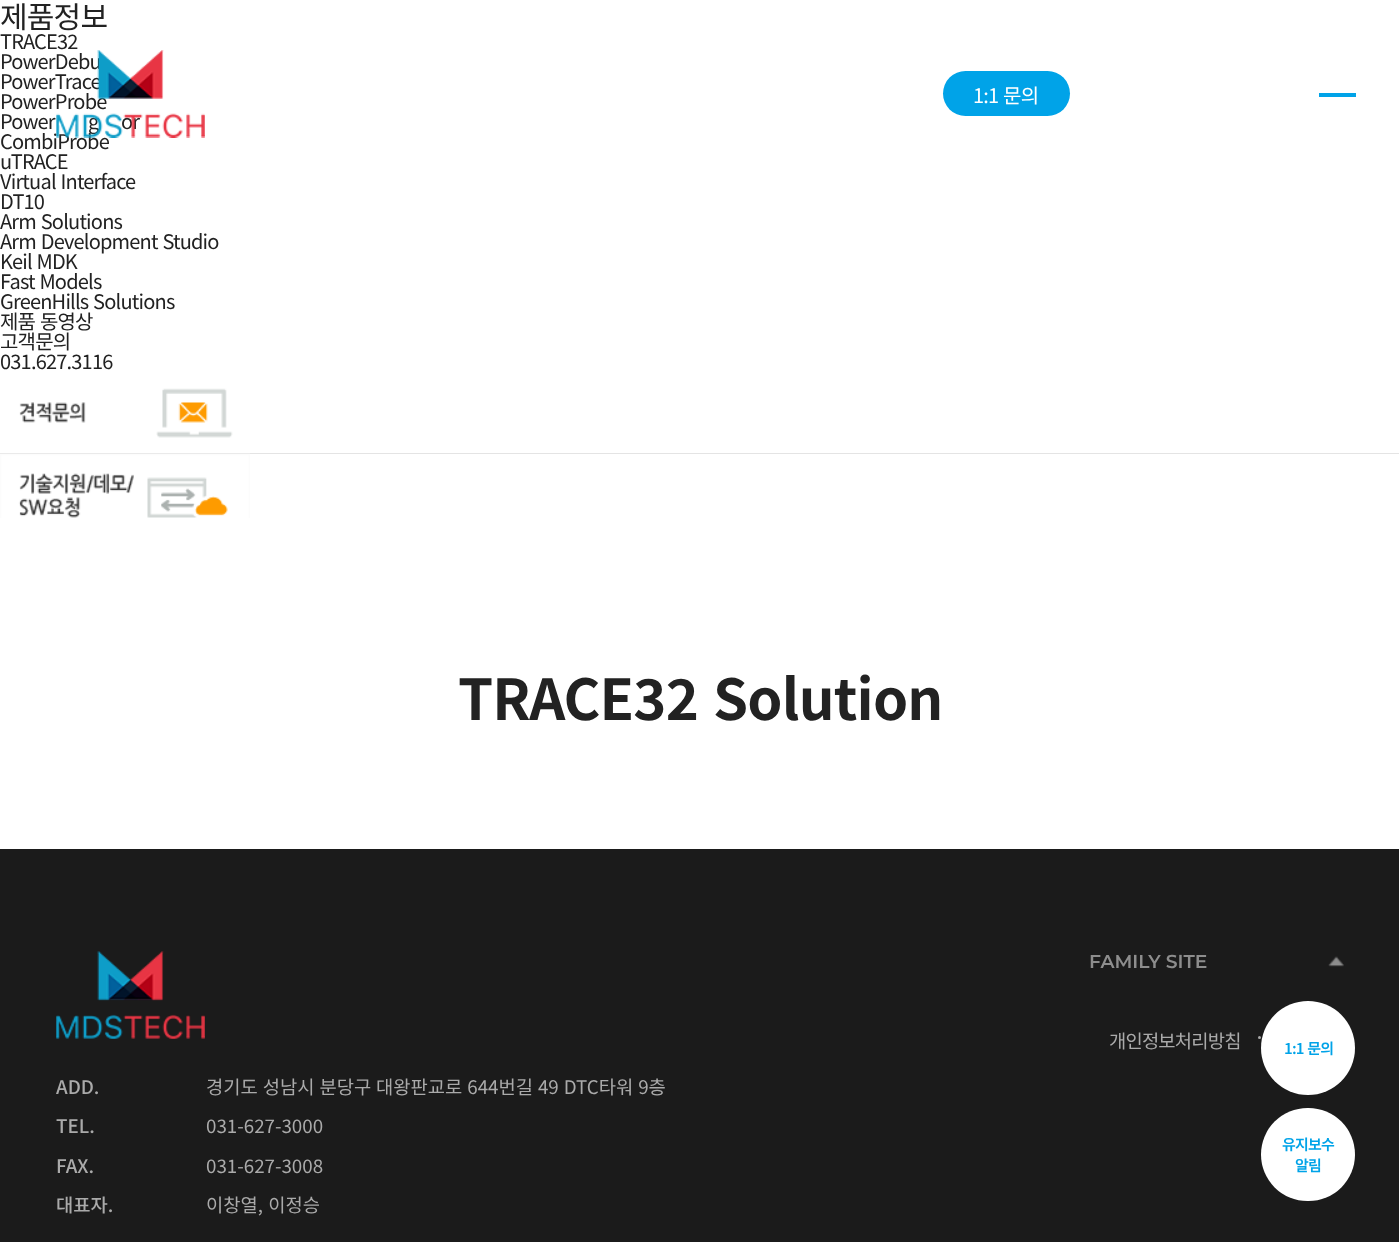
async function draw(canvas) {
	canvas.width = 1399;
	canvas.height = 1242;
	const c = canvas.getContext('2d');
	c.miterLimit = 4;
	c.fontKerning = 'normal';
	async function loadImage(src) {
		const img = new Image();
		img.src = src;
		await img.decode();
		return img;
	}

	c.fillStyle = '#fff';
	c.fillRect(0, 0, 1399, 1242);
	c.letterSpacing = '-0.8px';
	c.font = '30px Noto Sans KR';
	c.fillStyle = '#222';
	c.fillText('제품정보', 0, 28);
	c.font = '20px Noto Sans KR';
	for (const [text, x, y] of [
		['TRACE32', 0, 49],
		['PowerDebu', 0, 69],
		['PowerTrace', 0, 89],
		['PowerProbe', 0, 109],
		['Power', 0, 129],
		['g', 88, 129],
		['or', 121, 129],
		['CombiProbe', 0, 149],
		['uTRACE', 0, 169],
	]) {
		c.fillText(text, x, y);
	}
	c.wordSpacing = '1px';
	c.fillText('Virtual Interface', 0, 189);
	c.wordSpacing = '0px';
	c.fillText('DT10', 0, 209);
	c.wordSpacing = '1px';
	for (const [text, x, y] of [
		['Arm Solutions', 0, 229],
		['Arm Development Studio', 0, 249],
		['Keil MDK', 0, 269],
		['Fast Models', 0, 289],
		['GreenHills Solutions', 0, 309],
		['제품 동영상', 0, 329],
	]) {
		c.fillText(text, x, y);
	}
	c.wordSpacing = '0px';
	c.fillText('고객문의', 0, 349);
	c.fillText('031.627.3116', 0, 369);
	c.drawImage(await loadImage('img1.png'), 19, 388, 214, 50);
	c.fillStyle = '#e4e4e4';
	c.fillRect(0, 453, 1399, 1);
	c.drawImage(await loadImage('img2.png'), 0, 453, 250, 65);
	c.drawImage(await loadImage('img3.png'), 56, 50, 149, 88);
	c.fillStyle = '#00a3e8';
	c.beginPath();
	c.roundRect(943, 71, 127, 45, 22.5);
	c.fill();
	c.wordSpacing = '1px';
	c.fillStyle = '#fff';
	c.fillText('1:1 문의', 973, 103);
	c.fillStyle = '#00a3e8';
	c.fillRect(1319, 93, 37, 4);
	c.wordSpacing = '3px';
	c.font = 'bold 56.25px Noto Sans KR';
	c.fillStyle = '#222';
	c.fillText('TRACE32 Solution', 458, 720);
	c.fillStyle = '#1b1b1b';
	c.fillRect(0, 849, 1399, 393);
	c.letterSpacing = '0px';
	c.wordSpacing = '0px';
	c.font = '600 18.75px Montserrat';
	c.fillStyle = '#8d8d8d';
	c.fillText('FAMILY SITE', 1089, 968);
	c.drawImage(await loadImage('img4.png'), 1328, 956, 16, 11);
	c.letterSpacing = '-0.8px';
	c.font = '18.75px Noto Sans KR';
	c.fillStyle = '#aaa';
	c.fillText('개인정보처리방침', 1109, 1048);
	c.beginPath();
	c.arc(1259.5, 1037.5, 1.5, 0, 2 * Math.PI);
	c.fill();
	c.drawImage(await loadImage('img5.png'), 56, 951, 149, 88);
	c.letterSpacing = '0px';
	c.font = '500 18.75px Noto Sans KR';
	c.fillText('ADD.', 56, 1094);
	c.wordSpacing = '0.75px';
	c.font = '18.75px Noto Sans KR';
	c.fillText('경기도 성남시 분당구 대왕판교로 644번길 49 DTC타워 9층', 206, 1094);
	c.wordSpacing = '0px';
	c.font = '500 18.75px Noto Sans KR';
	c.fillText('TEL.', 56, 1133);
	c.font = '18.75px Noto Sans KR';
	c.fillText('031-627-3000', 206, 1133);
	c.font = '500 18.75px Noto Sans KR';
	c.fillText('FAX.', 56, 1173);
	c.font = '18.75px Noto Sans KR';
	c.fillText('031-627-3008', 206, 1173);
	c.font = '500 18.75px Noto Sans KR';
	c.fillText('대표자.', 56, 1212);
	c.wordSpacing = '1px';
	c.font = '18.75px Noto Sans KR';
	c.fillText('이창열, 이정승', 206, 1212);
	c.fillStyle = '#fff';
	c.beginPath();
	c.arc(1308, 1048, 47, 0, 2 * Math.PI);
	c.fill();
	c.letterSpacing = '-0.8px';
	c.font = '600 15px Noto Sans KR';
	c.fillStyle = '#00a3e8';
	c.fillText('1:1 문의', 1284, 1054);
	c.fillStyle = '#fff';
	c.beginPath();
	c.roundRect(1261, 1108, 94, 93, 46.5);
	c.fill();
	c.wordSpacing = '0px';
	c.fillStyle = '#00a3e8';
	c.fillText('유지보수', 1282, 1150);
	c.fillText('알림', 1295, 1171);
}

draw(document.querySelector('canvas'));
